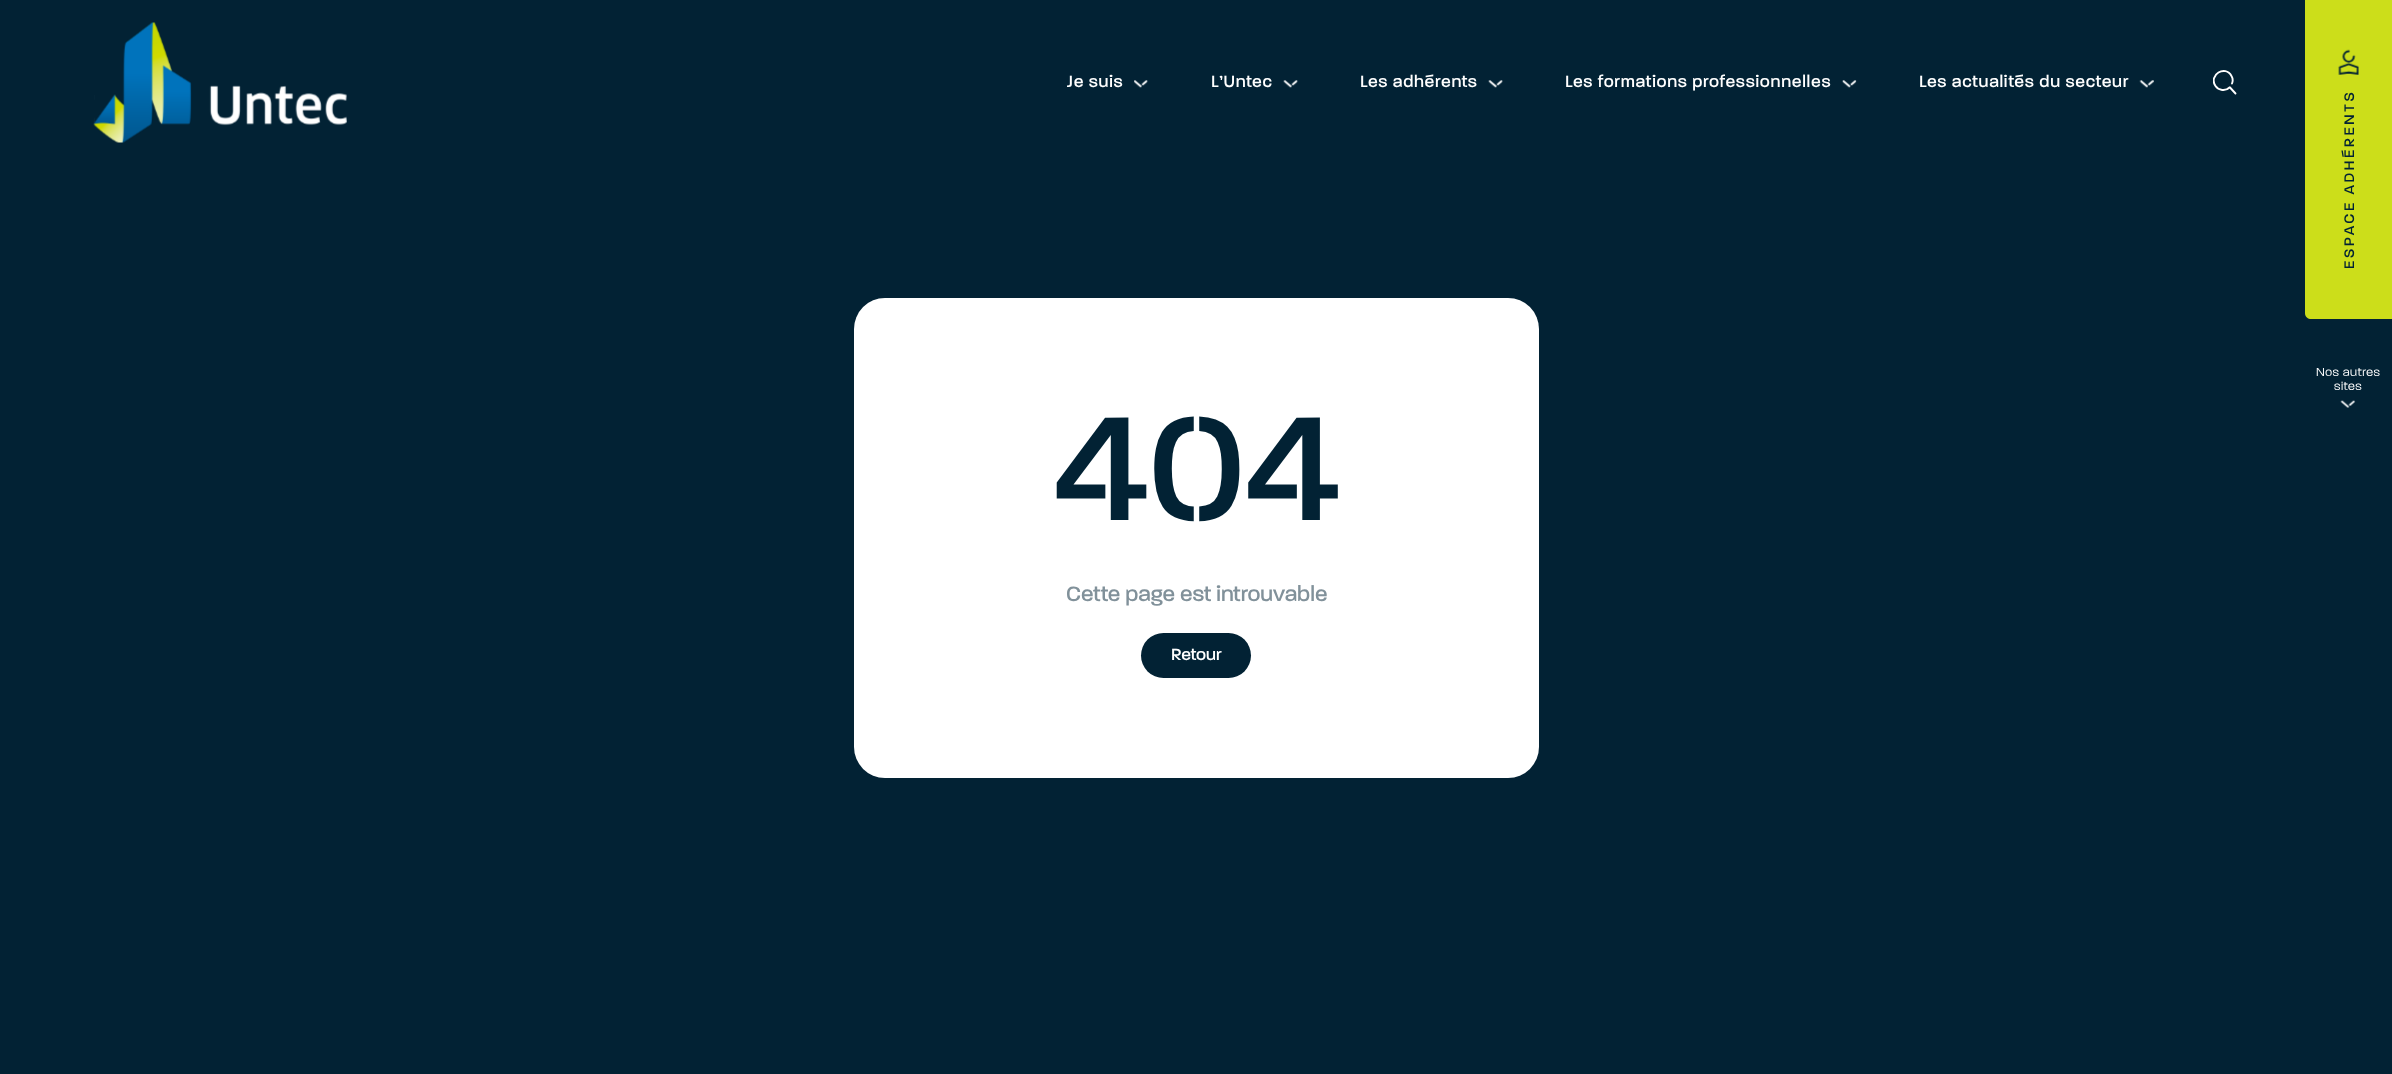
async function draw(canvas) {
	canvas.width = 2392;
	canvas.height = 1074;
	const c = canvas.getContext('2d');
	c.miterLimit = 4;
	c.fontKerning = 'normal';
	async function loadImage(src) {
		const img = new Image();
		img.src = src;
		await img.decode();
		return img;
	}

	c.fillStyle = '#022234';
	c.fillRect(0, 0, 2392, 1074);
	c.drawImage(await loadImage('img1.png'), 93, 22, 254, 121);
	c.letterSpacing = '0.7px';
	c.font = '500 17.5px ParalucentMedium';
	c.fillStyle = '#fff';
	c.fillText('Je suis', 1067, 87);
	c.drawImage(await loadImage('img2.png'), 1134, 80, 14, 8);
	c.fillText('L’Untec', 1211, 87);
	c.drawImage(await loadImage('img3.png'), 1283, 80, 15, 8);
	c.fillText('Les adhérents', 1360, 87);
	c.drawImage(await loadImage('img3.png'), 1488, 80, 15, 8);
	c.fillText('Les formations professionnelles', 1565, 87);
	c.drawImage(await loadImage('img4.png'), 1842, 80, 15, 8);
	c.fillText('Les actualités du secteur', 1919, 87);
	c.drawImage(await loadImage('img5.png'), 2139, 80, 15, 8);
	c.save();
	c.beginPath();
	c.rect(2213, 23, 25, 120);
	c.clip();
	c.beginPath();
	c.moveTo(2232, 83.5);
	c.bezierCurveTo(2233, 81, 2233, 78.5, 2231.5, 76);
	c.bezierCurveTo(2225.5, 64.5, 2208, 75, 2215.5, 86);
	c.bezierCurveTo(2218.5, 90.5, 2225.5, 91.5, 2229.5, 87.5);
	c.strokeStyle = '#fff';
	c.lineWidth = 1.9;
	c.lineCap = 'round';
	c.lineJoin = 'round';
	c.stroke();
	c.restore();
	c.beginPath();
	c.moveTo(2230, 87.5);
	c.lineTo(2235.5, 93.5);
	c.strokeStyle = '#fff';
	c.lineWidth = 1.9;
	c.lineCap = 'round';
	c.lineJoin = 'round';
	c.stroke();
	c.fillStyle = '#ccde1a';
	c.beginPath();
	c.moveTo(2392, 319);
	c.lineTo(2311, 319);
	c.bezierCurveTo(2308, 319, 2305, 317, 2305, 313);
	c.lineTo(2305, 0);
	c.lineTo(2392, 0);
	c.closePath();
	c.fill();
	c.drawImage(await loadImage('img6.png'), 2338, 49, 21, 26);
	c.letterSpacing = '2.5px';
	c.font = '500 15px ParalucentMedium';
	c.fillStyle = '#022234';
	c.save();
	c.translate(2354, 269);
	c.rotate(-90 * Math.PI / 180);
	c.fillText('ESPACE ADHÉRENTS', 0, 0);
	c.restore();
	c.letterSpacing = '0.5px';
	c.font = '300 12.5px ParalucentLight';
	c.fillStyle = '#fff';
	c.fillText('Nos autres', 2316, 376);
	c.fillText('sites', 2334, 390);
	c.drawImage(await loadImage('img7.png'), 2340, 400, 16, 8);
	c.beginPath();
	c.roundRect(854, 298, 685, 480, 31);
	c.fill();
	c.letterSpacing = '0px';
	c.font = '500 160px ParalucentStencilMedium';
	c.fillStyle = '#022234';
	c.fillText('404', 1054, 520);
	c.font = '500 22.5px ParalucentMedium';
	c.fillStyle = '#81919a';
	c.fillText('Cette page est introuvable', 1066, 601);
	c.fillStyle = '#022234';
	c.beginPath();
	c.roundRect(1141, 633, 110, 45, 22.5);
	c.fill();
	c.font = '500 17.5px ParalucentMedium';
	c.fillStyle = '#fff';
	c.fillText('Retour', 1171, 660);
}

draw(document.querySelector('canvas'));
